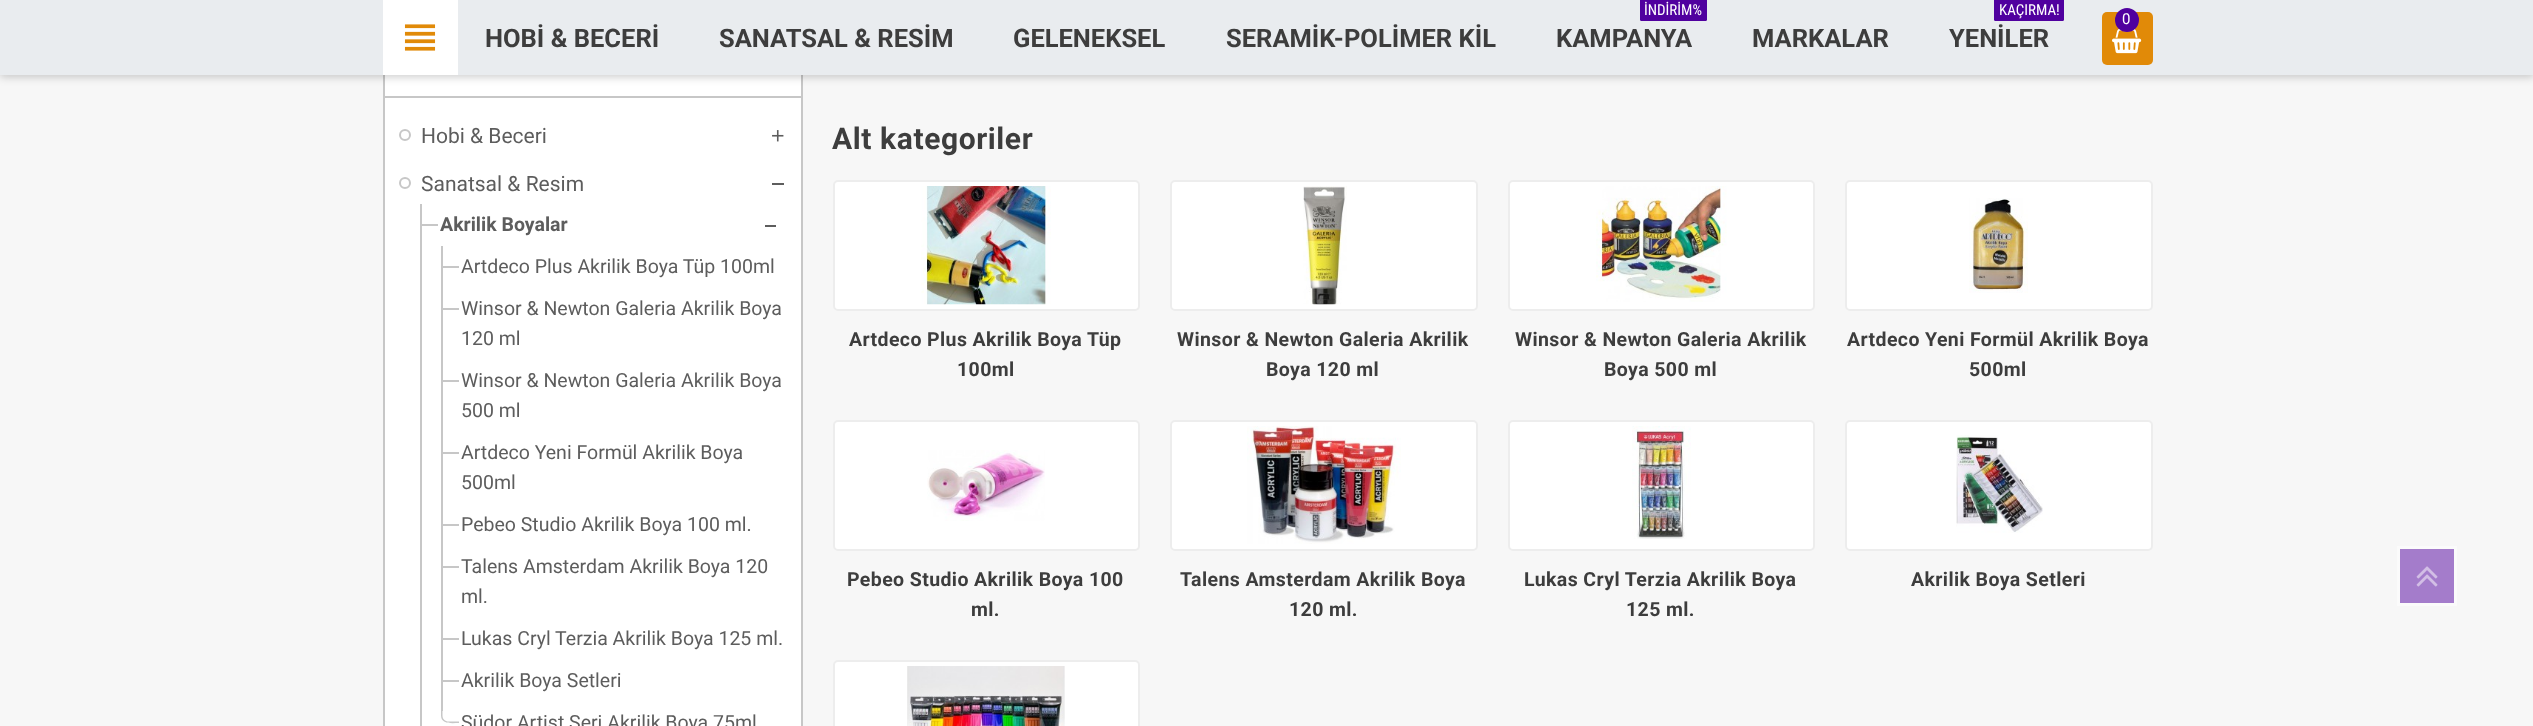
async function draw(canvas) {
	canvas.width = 2533;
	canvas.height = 726;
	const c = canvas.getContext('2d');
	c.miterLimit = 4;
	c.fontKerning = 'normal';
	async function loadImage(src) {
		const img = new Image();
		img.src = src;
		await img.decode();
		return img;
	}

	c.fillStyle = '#f7f7f7';
	c.fillRect(0, 0, 2533, 726);
	c.fillStyle = '#fff';
	c.fillRect(385, 75, 416, 651);
	c.strokeStyle = '#c7c7c7';
	c.lineWidth = 2;
	c.strokeRect(384, 27, 418, 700);
	c.fillStyle = '#00000033';
	c.filter = 'blur(4px)';
	c.beginPath();
	c.rect(0, 2, 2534, 75);
	c.fill();
	c.filter = 'none';
	c.fillStyle = '#e9ecef';
	c.fillRect(0, 0, 2533, 75);
	c.fillStyle = '#fff';
	c.fillRect(383, 0, 75, 75);
	c.drawImage(await loadImage('img1.png'), 404, 24, 32, 27);
	c.font = 'bold 25.5px "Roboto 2"';
	c.fillStyle = '#3d3d3d';
	for (const [text, x, y] of [
		['HOBİ & BECERİ', 485, 47],
		['SANATSAL & RESİM', 719, 47],
		['GELENEKSEL', 1013, 47],
		['SERAMİK-POLİMER KİL', 1226, 47],
	]) {
		c.fillText(text, x, y);
	}
	c.fillStyle = '#50009f';
	c.beginPath();
	c.roundRect(1640, -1, 67, 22, 1.5);
	c.fill();
	c.font = '15px Roboto Condensed';
	c.fillStyle = '#fff';
	c.fillText('İNDİRİM%', 1644, 15);
	c.font = 'bold 25.5px "Roboto 2"';
	c.fillStyle = '#3d3d3d';
	c.fillText('KAMPANYA', 1556, 47);
	c.fillText('MARKALAR', 1752, 47);
	c.fillStyle = '#50009f';
	c.beginPath();
	c.roundRect(1994, -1, 70, 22, 1.5);
	c.fill();
	c.font = '15px Roboto Condensed';
	c.fillStyle = '#fff';
	c.fillText('KAÇIRMA!', 1999, 15);
	c.font = 'bold 25.5px "Roboto 2"';
	c.fillStyle = '#3d3d3d';
	c.fillText('YENİLER', 1949, 47);
	c.fillStyle = '#e18a08';
	c.beginPath();
	c.roundRect(2102, 12, 51, 53, 5);
	c.fill();
	c.drawImage(await loadImage('img2.png'), 2112, 28, 30, 26);
	c.fillStyle = '#50009f';
	c.beginPath();
	c.arc(2127, 20, 12, 0, 2 * Math.PI);
	c.fill();
	c.font = '15px Roboto';
	c.fillStyle = '#fff';
	c.fillText('0', 2122, 24);
	c.fillStyle = '#c7c7c7';
	c.fillRect(384, 96, 417, 2);
	c.beginPath();
	c.arc(405, 135, 5, 0, 2 * Math.PI);
	c.stroke();
	c.font = '21px Roboto';
	c.fillStyle = '#5d5d5d';
	c.fillText('Hobi & Beceri', 421, 143);
	c.drawImage(await loadImage('img3.png'), 772, 130, 12, 12);
	c.beginPath();
	c.arc(405, 183, 5, 0, 2 * Math.PI);
	c.stroke();
	c.fillText('Sanatsal & Resim', 421, 191);
	for (const [x, y, w, h, color] of [
		[772, 183, 12, 2, '#5d5d5d'],
		[420, 224, 18, 2, '#c7c7c7'],
		[420, 204, 2, 522, '#c7c7c7'],
	]) {
		c.fillStyle = color;
		c.fillRect(x, y, w, h);
	}
	c.font = 'bold 19.5px Roboto';
	c.fillStyle = '#5d5d5d';
	c.fillText('Akrilik Boyalar', 440, 231);
	for (const [x, y, w, h, color] of [
		[765, 225, 11, 2, '#5d5d5d'],
		[441, 266, 18, 2, '#c7c7c7'],
		[441, 246, 2, 42, '#c7c7c7'],
	]) {
		c.fillStyle = color;
		c.fillRect(x, y, w, h);
	}
	c.font = '19.5px Roboto';
	c.fillStyle = '#5d5d5d';
	c.fillText('Artdeco Plus Akrilik Boya Tüp 100ml', 461, 273);
	c.fillStyle = '#c7c7c7';
	c.fillRect(441, 308, 18, 2);
	c.fillRect(441, 288, 2, 72);
	c.fillStyle = '#5d5d5d';
	c.fillText('Winsor & Newton Galeria Akrilik Boya', 461, 315);
	c.fillText('120 ml', 461, 345);
	c.fillStyle = '#c7c7c7';
	c.fillRect(441, 380, 18, 2);
	c.fillRect(441, 360, 2, 72);
	c.fillStyle = '#5d5d5d';
	c.fillText('Winsor & Newton Galeria Akrilik Boya', 461, 387);
	c.fillText('500 ml', 461, 417);
	c.fillStyle = '#c7c7c7';
	c.fillRect(441, 452, 18, 2);
	c.fillRect(441, 432, 2, 72);
	c.fillStyle = '#5d5d5d';
	c.fillText('Artdeco Yeni Formül Akrilik Boya', 461, 459);
	c.fillText('500ml', 461, 489);
	c.fillStyle = '#c7c7c7';
	c.fillRect(441, 524, 18, 2);
	c.fillRect(441, 504, 2, 42);
	c.fillStyle = '#5d5d5d';
	c.fillText('Pebeo Studio Akrilik Boya 100 ml.', 461, 531);
	c.fillStyle = '#c7c7c7';
	c.fillRect(441, 566, 18, 2);
	c.fillRect(441, 546, 2, 72);
	c.fillStyle = '#5d5d5d';
	c.fillText('Talens Amsterdam Akrilik Boya 120', 461, 573);
	c.fillText('ml.', 461, 603);
	c.fillStyle = '#c7c7c7';
	c.fillRect(441, 638, 18, 2);
	c.fillRect(441, 618, 2, 42);
	c.fillStyle = '#5d5d5d';
	c.fillText('Lukas Cryl Terzia Akrilik Boya 125 ml.', 461, 645);
	c.fillStyle = '#c7c7c7';
	c.fillRect(441, 680, 18, 2);
	c.fillRect(441, 660, 2, 51);
	c.fillStyle = '#5d5d5d';
	c.fillText('Akrilik Boya Setleri', 461, 687);
	c.fillStyle = '#c7c7c7';
	c.beginPath();
	c.moveTo(441, 702);
	c.lineTo(459, 702);
	c.lineTo(459, 723);
	c.bezierCurveTo(453, 723, 441, 725, 441, 715.5);
	c.closePath();
	c.moveTo(442.5, 702);
	c.lineTo(459, 702);
	c.lineTo(459, 721.5);
	c.lineTo(448.5, 721.5);
	c.bezierCurveTo(445, 721.5, 442.5, 719, 442.5, 715.5);
	c.closePath();
	c.fill('evenodd');
	c.fillStyle = '#5d5d5d';
	c.fillText('Südor Artist Seri Akrilik Boya 75ml', 461, 729);
	c.letterSpacing = '0.6px';
	c.font = 'bold 30px "Roboto 2"';
	c.fillStyle = '#3d3d3d';
	c.fillText('Alt kategoriler', 832, 149);
	c.fillStyle = '#fff';
	c.beginPath();
	c.roundRect(834, 181, 305, 129, 4);
	c.fill();
	c.strokeStyle = '#ededed';
	c.stroke();
	c.drawImage(await loadImage('img4.png'), 921, 186, 130, 119);
	c.letterSpacing = '0.4px';
	c.font = 'bold 19.5px "Roboto 2"';
	c.fillStyle = '#3d3d3d';
	c.fillText('Artdeco Plus Akrilik Boya Tüp', 849, 346);
	c.fillText('100ml', 957, 376);
	c.fillStyle = '#fff';
	c.beginPath();
	c.roundRect(1171, 181, 306, 129, 4);
	c.fill();
	c.stroke();
	c.drawImage(await loadImage('img5.png'), 1303, 186, 44, 119);
	c.fillStyle = '#3d3d3d';
	c.fillText('Winsor & Newton Galeria Akrilik', 1177, 346);
	c.fillText('Boya 120 ml', 1266, 376);
	c.fillStyle = '#fff';
	c.beginPath();
	c.roundRect(1509, 181, 305, 129, 4);
	c.fill();
	c.stroke();
	c.drawImage(await loadImage('img6.png'), 1596, 186, 131, 116);
	c.fillStyle = '#3d3d3d';
	c.fillText('Winsor & Newton Galeria Akrilik', 1515, 346);
	c.fillText('Boya 500 ml', 1604, 376);
	c.fillStyle = '#fff';
	c.beginPath();
	c.roundRect(1846, 181, 306, 129, 4);
	c.fill();
	c.stroke();
	c.drawImage(await loadImage('img7.png'), 1969, 198, 59, 95);
	c.fillStyle = '#3d3d3d';
	c.fillText('Artdeco Yeni Formül Akrilik Boya', 1847, 346);
	c.fillText('500ml', 1969, 376);
	c.fillStyle = '#fff';
	c.beginPath();
	c.roundRect(834, 421, 305, 129, 4);
	c.fill();
	c.stroke();
	c.drawImage(await loadImage('img8.png'), 927, 450, 118, 71);
	c.fillStyle = '#3d3d3d';
	c.fillText('Pebeo Studio Akrilik Boya 100', 847, 586);
	c.fillText('ml.', 971, 616);
	c.fillStyle = '#fff';
	c.beginPath();
	c.roundRect(1171, 421, 306, 129, 4);
	c.fill();
	c.stroke();
	c.drawImage(await loadImage('img9.png'), 1247, 426, 154, 118);
	c.fillStyle = '#3d3d3d';
	c.fillText('Talens Amsterdam Akrilik Boya', 1180, 586);
	c.fillText('120 ml.', 1289, 616);
	c.fillStyle = '#fff';
	c.beginPath();
	c.roundRect(1509, 421, 305, 129, 4);
	c.fill();
	c.stroke();
	c.drawImage(await loadImage('img10.png'), 1632, 426, 59, 113);
	c.fillStyle = '#3d3d3d';
	c.fillText('Lukas Cryl Terzia Akrilik Boya', 1524, 586);
	c.fillText('125 ml.', 1626, 616);
	c.fillStyle = '#fff';
	c.beginPath();
	c.roundRect(1846, 421, 306, 129, 4);
	c.fill();
	c.stroke();
	c.drawImage(await loadImage('img11.png'), 1956, 435, 87, 98);
	c.fillStyle = '#3d3d3d';
	c.fillText('Akrilik Boya Setleri', 1911, 586);
	c.fillStyle = '#fff';
	c.beginPath();
	c.roundRect(834, 661, 305, 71, 4);
	c.fill();
	c.stroke();
	c.drawImage(await loadImage('img12.png'), 907, 666, 158, 60);
	c.fillStyle = '#a47ccb';
	c.beginPath();
	c.rect(2398.5, 547.5, 57, 57);
	c.fill();
	c.strokeStyle = '#fbfbfb';
	c.lineWidth = 3;
	c.stroke();
	c.drawImage(await loadImage('img13.png'), 2416, 566, 22, 21);
}

draw(document.querySelector('canvas'));
